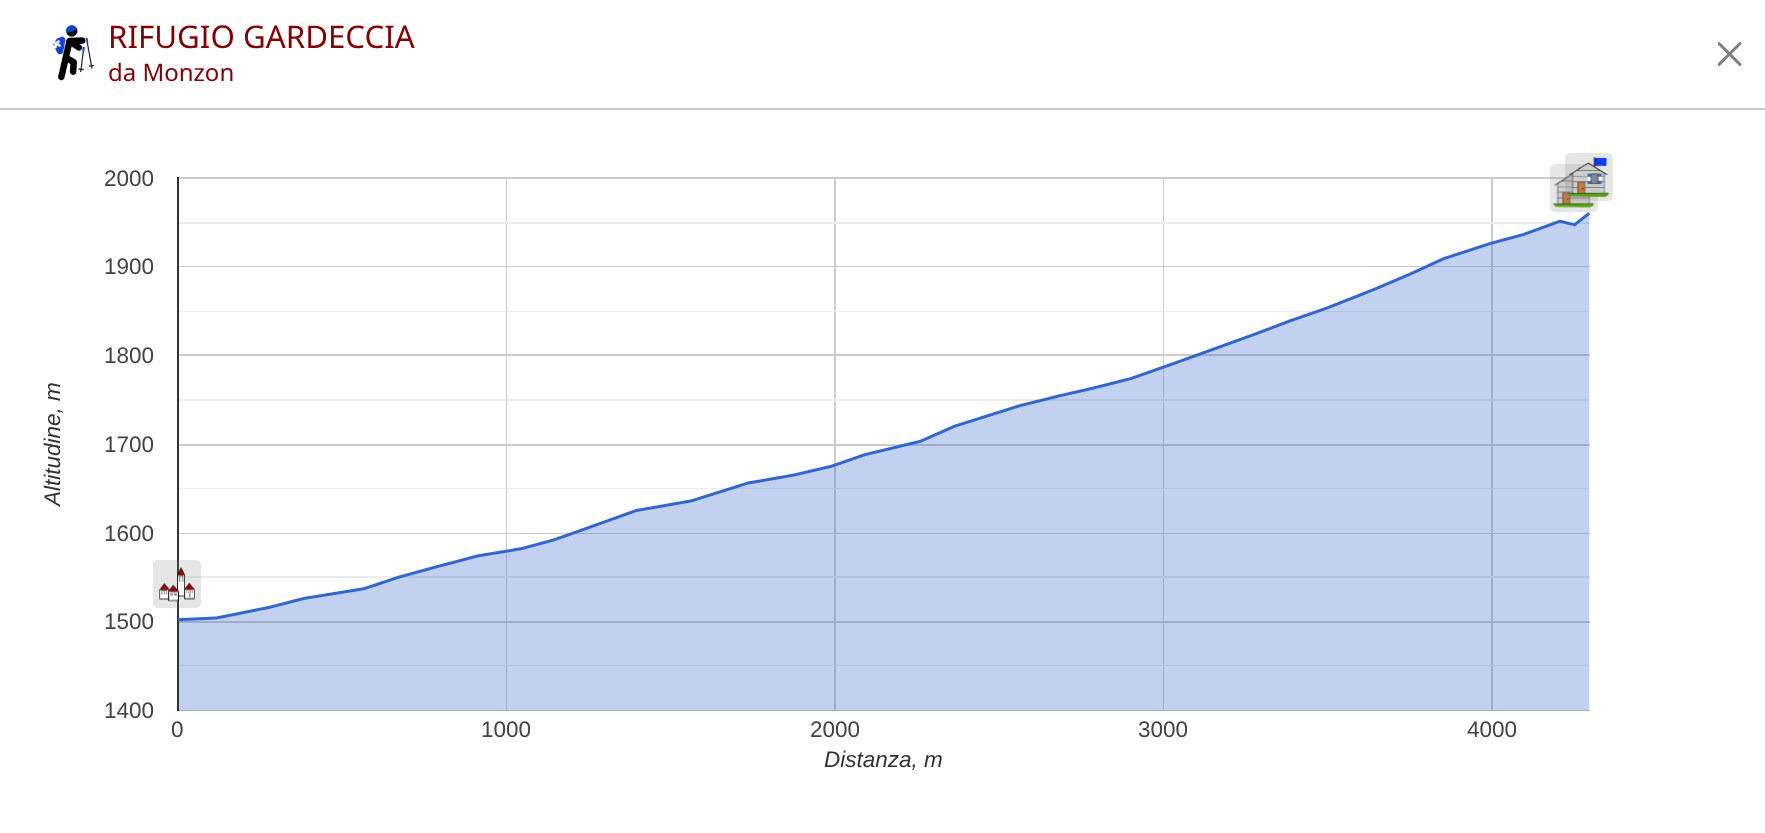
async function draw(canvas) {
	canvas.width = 1765;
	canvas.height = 833;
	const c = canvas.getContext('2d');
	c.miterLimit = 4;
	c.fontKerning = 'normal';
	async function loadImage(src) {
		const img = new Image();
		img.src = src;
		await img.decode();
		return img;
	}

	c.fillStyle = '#fff';
	c.fillRect(0, 0, 1765, 833);
	c.fillStyle = '#c5c9cd';
	c.fillRect(0, 108, 1765, 2);
	c.drawImage(await loadImage('img1.png'), 53, 25, 42, 56);
	c.font = '31.25px Noto Sans';
	c.fillStyle = '#800000';
	c.fillText('RIFUGIO GARDECCIA', 108, 48);
	c.font = '24px Noto Sans';
	c.fillText('da Monzon', 108, 81);
	c.drawImage(await loadImage('img2.png'), 1718, 42, 24, 24);
	c.drawImage(await loadImage('img4.png'), 177, 177, 1413, 534);
	c.fillStyle = '#80808033';
	c.beginPath();
	c.roundRect(1550, 164, 48, 48, 5);
	c.fill();
	c.drawImage(await loadImage('img5.png'), 1552, 167, 43, 41);
	c.beginPath();
	c.roundRect(1565, 153, 48, 48, 5);
	c.fill();
	c.drawImage(await loadImage('img3.png'), 1567, 157, 43, 40);
	c.font = '22.5px Liberation Sans';
	c.fillStyle = '#444';
	for (const [text, x, y] of [
		['2000', 104, 186],
		['1900', 104, 274],
		['1800', 104, 363],
	]) {
		c.fillText(text, x, y);
	}
	c.font = 'italic 22.5px Liberation Sans';
	c.fillStyle = '#333';
	c.save();
	c.translate(60, 506);
	c.rotate(-90 * Math.PI / 180);
	c.fillText('Altitudine, m', 0, 0);
	c.restore();
	c.font = '22.5px Liberation Sans';
	c.fillStyle = '#444';
	for (const [text, x, y] of [
		['1700', 104, 452],
		['1600', 104, 541],
		['1500', 104, 629],
		['1400', 104, 718],
		['0', 171, 737],
		['1000', 481, 737],
		['2000', 810, 737],
		['3000', 1138, 737],
		['4000', 1467, 737],
	]) {
		c.fillText(text, x, y);
	}
	c.font = 'italic 22.5px Liberation Sans';
	c.fillStyle = '#333';
	c.fillText('Distanza, m', 824, 767);
	c.fillStyle = '#80808033';
	c.beginPath();
	c.roundRect(153, 560, 48, 48, 5);
	c.fill();
	c.drawImage(await loadImage('img6.png'), 159, 567, 36, 35);
}

draw(document.querySelector('canvas'));
